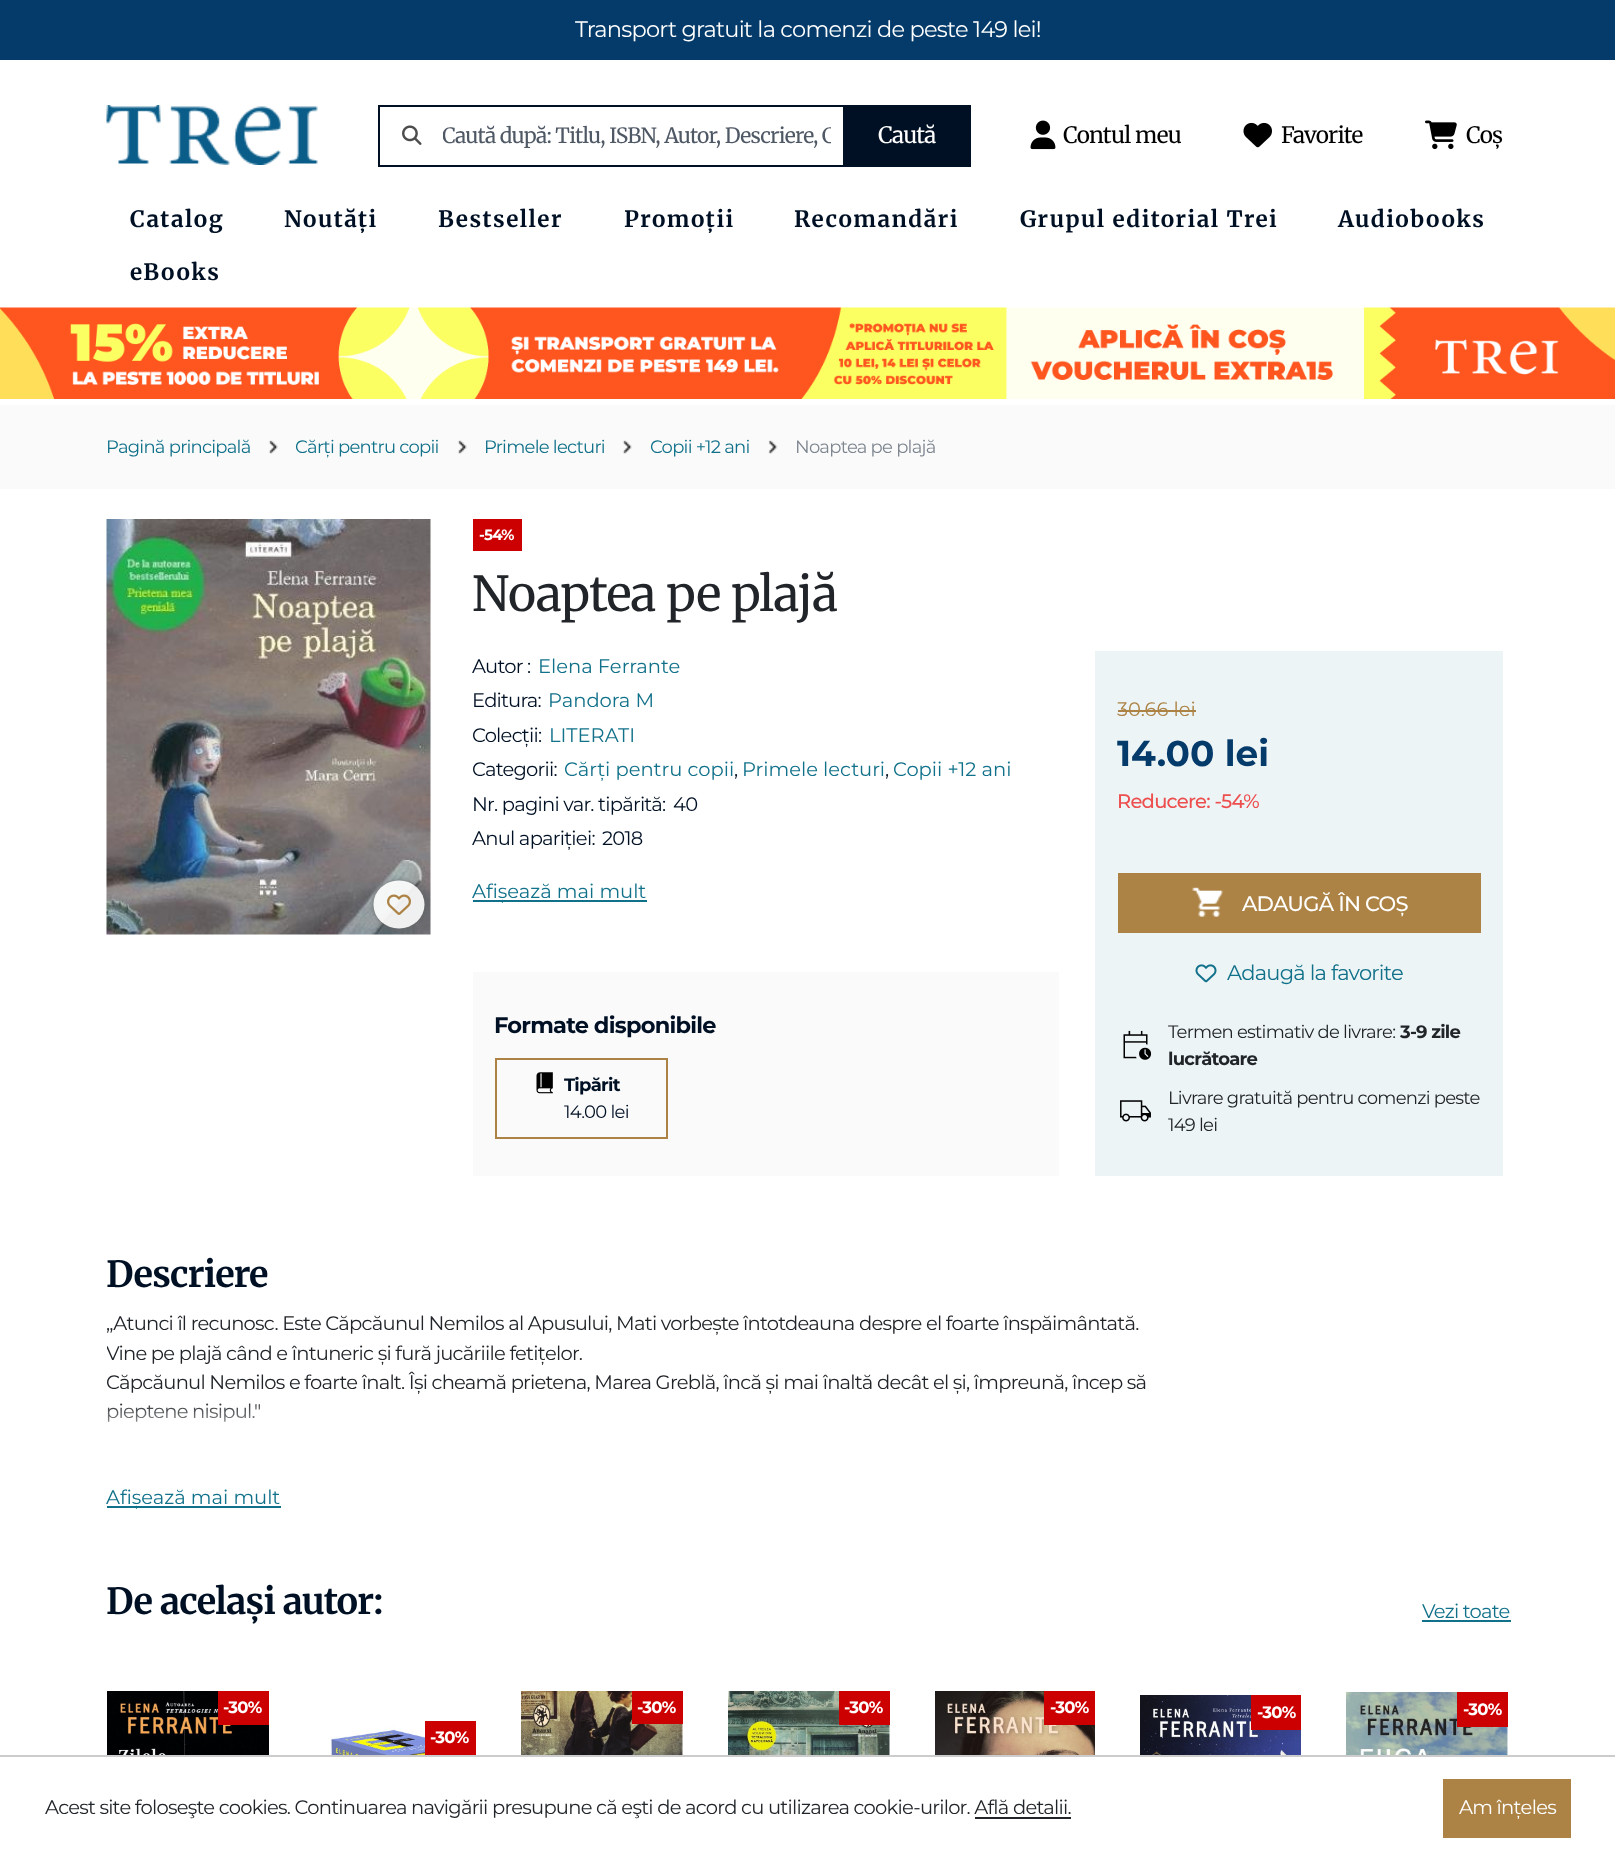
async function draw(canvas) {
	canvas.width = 1615;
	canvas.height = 1859;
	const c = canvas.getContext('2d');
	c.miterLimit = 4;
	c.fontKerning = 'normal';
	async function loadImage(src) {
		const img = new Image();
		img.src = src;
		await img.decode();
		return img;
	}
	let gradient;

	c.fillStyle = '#fff';
	c.fillRect(0, 0, 1615, 1859);
	c.fillStyle = '#053b6a';
	c.fillRect(0, 0, 1615, 60);
	c.letterSpacing = '-0.75px';
	c.font = '22.5px Montserrat';
	c.fillStyle = '#fff';
	c.fillText('Transport gratuit la comenzi de peste 149 lei!', 575, 37);
	c.drawImage(await loadImage('img1.png'), 106, 105, 212, 60);
	c.drawImage(await loadImage('img2.png'), 402, 125, 20, 20);
	for (const [x, y, w, h, color] of [
		[378, 105, 465, 2, '#001024'],
		[378, 165, 465, 2, '#001024'],
		[378, 105, 2, 62, '#001024'],
	]) {
		c.fillStyle = color;
		c.fillRect(x, y, w, h);
	}
	c.save();
	c.beginPath();
	c.rect(443, 122, 388, 27);
	c.clip();
	c.font = '21px Merriweather';
	c.fillStyle = '#4f5865';
	c.fillText('Caută după: Titlu, ISBN, Autor, Descriere, C', 442, 143);
	c.restore();
	c.fillRect(843, 105, 128, 62);
	c.font = '22.5px Merriweather';
	c.fillStyle = '#fff';
	c.fillText('Caută', 878, 143);
	c.drawImage(await loadImage('img3.png'), 1030, 120, 26, 30);
	c.fillStyle = '#000';
	c.fillText('Contul meu', 1063, 143);
	c.drawImage(await loadImage('img4.png'), 1243, 122, 29, 26);
	c.fillText('Favorite', 1281, 143);
	c.drawImage(await loadImage('img5.png'), 1425, 120, 32, 30);
	c.fillText('Coș', 1466, 143);
	c.letterSpacing = '1.5px';
	c.font = 'bold 22.5px Merriweather';
	c.fillStyle = '#001024';
	for (const [text, x, y] of [
		['Catalog', 130, 227],
		['Noutăți', 284, 227],
		['Bestseller', 438, 227],
		['Promoții', 624, 227],
		['Recomandări', 794, 227],
		['Grupul editorial Trei', 1020, 227],
		['Audiobooks', 1338, 227],
		['eBooks', 130, 280],
	]) {
		c.fillText(text, x, y);
	}
	c.drawImage(await loadImage('img6.png'), 0, 307, 1615, 92);
	c.fillStyle = '#fafafa';
	c.fillRect(0, 405, 1615, 84);
	c.letterSpacing = '-0.75px';
	c.font = '18px Montserrat';
	c.fillStyle = '#11718a';
	c.fillText('Pagină principală', 106, 453);
	c.drawImage(await loadImage('img7.png'), 268, 440, 10, 14);
	c.fillText('Cărți pentru copii', 295, 453);
	c.drawImage(await loadImage('img8.png'), 457, 440, 10, 14);
	c.fillText('Primele lecturi', 484, 453);
	c.drawImage(await loadImage('img9.png'), 622, 440, 10, 14);
	c.fillText('Copii +12 ani', 650, 453);
	c.drawImage(await loadImage('img10.png'), 768, 440, 10, 14);
	c.fillStyle = '#7d858f';
	c.fillText('Noaptea pe plajă', 795, 453);
	c.drawImage(await loadImage('img11.png'), 106, 519, 325, 416);
	c.save();
	c.beginPath();
	c.moveTo(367, 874);
	c.lineTo(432, 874);
	c.lineTo(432, 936);
	c.lineTo(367, 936);
	c.closePath();
	c.moveTo(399, 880.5);
	c.bezierCurveTo(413, 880.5, 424.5, 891, 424.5, 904.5);
	c.bezierCurveTo(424.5, 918, 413, 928.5, 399, 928.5);
	c.bezierCurveTo(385, 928.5, 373.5, 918, 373.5, 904.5);
	c.bezierCurveTo(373.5, 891, 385, 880.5, 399, 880.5);
	c.closePath();
	c.clip('evenodd');
	c.fillStyle = '#666';
	c.filter = 'blur(2px)';
	c.beginPath();
	c.roundRect(374, 881, 51, 48, 24);
	c.fill();
	c.filter = 'none';
	c.restore();
	c.fillStyle = '#ffffffe6';
	c.beginPath();
	c.ellipse(399, 904.5, 25.5, 24, 0, 0, 2 * Math.PI);
	c.fill();
	c.drawImage(await loadImage('img12.png'), 387, 894, 24, 21);
	c.fillStyle = '#c00';
	c.fillRect(473, 519, 49, 32);
	c.font = 'bold 15px Montserrat';
	c.fillStyle = '#fff';
	c.fillText('-54%', 479, 540);
	c.font = '48px Merriweather';
	c.fillStyle = '#212529';
	c.fillText('Noaptea pe plajă', 472, 611);
	c.font = '19.5px Montserrat';
	c.fillStyle = '#001024';
	c.fillText('Autor :', 472, 673);
	c.letterSpacing = '0px';
	c.fillStyle = '#11718a';
	c.fillText('Elena Ferrante', 538, 673);
	c.letterSpacing = '-0.75px';
	c.fillStyle = '#001024';
	c.fillText('Editura:', 472, 707);
	c.letterSpacing = '0px';
	c.fillStyle = '#11718a';
	c.fillText('Pandora M', 548, 707);
	c.letterSpacing = '-0.75px';
	c.fillStyle = '#001024';
	c.fillText('Colecții:', 472, 742);
	c.letterSpacing = '0px';
	c.fillStyle = '#11718a';
	c.fillText('LITERATI', 549, 742);
	c.letterSpacing = '-0.75px';
	c.fillStyle = '#001024';
	c.fillText('Categorii:', 472, 776);
	c.letterSpacing = '0px';
	c.fillStyle = '#11718a';
	c.fillText('Cărți pentru copii', 564, 776);
	c.letterSpacing = '-0.75px';
	c.fillStyle = '#001024';
	c.fillText(',', 734, 776);
	c.letterSpacing = '0px';
	c.fillStyle = '#11718a';
	c.fillText('Primele lecturi', 742, 776);
	c.letterSpacing = '-0.75px';
	c.fillStyle = '#001024';
	c.fillText(',', 885, 776);
	c.letterSpacing = '0px';
	c.fillStyle = '#11718a';
	c.fillText('Copii +12 ani', 893, 776);
	c.letterSpacing = '-0.75px';
	c.fillStyle = '#001024';
	for (const [text, x, y] of [
		['Nr. pagini var. tipărită:', 472, 811],
		['40', 673, 811],
		['Anul apariției:', 472, 845],
		['2018', 602, 845],
	]) {
		c.fillText(text, x, y);
	}
	c.fillStyle = '#11718a';
	c.fillRect(473, 900, 174, 2);
	c.letterSpacing = '0px';
	c.fillText('Afișează mai mult', 472, 898);
	c.fillStyle = '#fafafa';
	c.fillRect(473, 972, 586, 204);
	c.letterSpacing = '-0.75px';
	c.font = 'bold 22.5px Montserrat';
	c.fillStyle = '#001024';
	c.fillText('Formate disponibile', 494, 1033);
	c.strokeStyle = '#ac8345';
	c.lineWidth = 2;
	c.strokeRect(496, 1059, 171, 79);
	c.drawImage(await loadImage('img13.png'), 536, 1072, 17, 22);
	c.font = 'bold 18px Montserrat';
	c.fillText('Tipărit', 564, 1091);
	c.font = '18px Montserrat';
	c.fillText('14.00 lei', 564, 1118);
	c.fillStyle = '#edf4f6';
	c.fillRect(1095, 651, 408, 525);
	c.letterSpacing = '0px';
	c.font = '19.5px Montserrat';
	c.fillStyle = '#ac8345';
	c.fillText('30.66 lei', 1117, 716);
	c.fillRect(1118, 710, 78, 2);
	c.font = 'bold 36px Montserrat';
	c.fillStyle = '#053b6a';
	c.fillText('14.00 lei', 1117, 766);
	c.letterSpacing = '-0.75px';
	c.font = '500 19.5px Montserrat';
	c.fillStyle = '#ed4e4e';
	c.fillText('Reducere: -54%', 1117, 808);
	c.fillStyle = '#ac8345';
	c.fillRect(1118, 873, 363, 60);
	c.drawImage(await loadImage('img14.png'), 1192, 887, 31, 30);
	c.font = '500 21px Montserrat';
	c.fillStyle = '#fff';
	c.fillText('ADAUGĂ ÎN COȘ', 1242, 911);
	c.drawImage(await loadImage('img15.png'), 1195, 964, 22, 19);
	c.font = '21px Montserrat';
	c.fillStyle = '#11718a';
	c.fillText('Adaugă la favorite', 1227, 980);
	c.drawImage(await loadImage('img16.png'), 1123, 1030, 29, 30);
	c.font = '18px Montserrat';
	c.fillStyle = '#212529';
	c.fillText('Termen estimativ de livrare:', 1168, 1038);
	c.font = 'bold 18px Montserrat';
	c.fillText('3-9 zile', 1400, 1038);
	c.fillText('lucrătoare', 1168, 1065);
	c.drawImage(await loadImage('img17.png'), 1120, 1100, 31, 22);
	c.font = '18px Montserrat';
	c.fillText('Livrare gratuită pentru comenzi peste', 1168, 1104);
	c.fillText('149 lei', 1168, 1131);
	c.font = 'bold 36px Merriweather';
	c.fillStyle = '#001024';
	c.fillText('Descriere', 106, 1287);
	c.font = '19.5px Montserrat';
	c.fillStyle = '#212529';
	c.fillText('„Atunci îl recunosc. Este Căpcăunul Nemilos al Apusului, Mati vorbește întotdeauna despre el foarte înspăimântată.', 106, 1330);
	c.save();
	c.beginPath();
	c.rect(107, 1310, 1044, 150);
	c.clip();
	c.fillText('Vine pe plajă când e întuneric și fură jucăriile fetițelor.', 106, 1360);
	c.fillText('Căpcăunul Nemilos e foarte înalt. Își cheamă prietena, Marea Greblă, încă și mai înaltă decât el și, împreună, încep să', 106, 1389);
	c.restore();
	c.fillText('pieptene nisipul."', 106, 1418);
	gradient = c.createLinearGradient(629, 1400, 629, 1460);
	gradient.addColorStop(0, '#ffffff00');
	gradient.addColorStop(0.8, '#fff');
	gradient.addColorStop(1, '#fff');
	c.fillStyle = gradient;
	c.fillRect(107, 1403, 153, 19);
	c.fillStyle = '#11718a';
	c.fillRect(107, 1506, 174, 2);
	c.letterSpacing = '0px';
	c.fillText('Afișează mai mult', 106, 1504);
	c.letterSpacing = '-0.75px';
	c.font = 'bold 36px Merriweather';
	c.fillStyle = '#001024';
	c.fillText('De același autor:', 106, 1614);
	c.font = '19.5px Montserrat';
	c.fillStyle = '#11718a';
	c.fillText('Vezi toate', 1422, 1618);
	c.fillRect(1422, 1620, 89, 2);
	c.drawImage(await loadImage('img18.png'), 107, 1691, 162, 64);
	c.fillStyle = '#c00';
	c.fillRect(218, 1691, 51, 34);
	c.font = 'bold 16.5px Montserrat';
	c.fillStyle = '#fff';
	c.fillText('-30%', 223, 1713);
	c.drawImage(await loadImage('img19.png'), 521, 1691, 162, 64);
	c.fillStyle = '#c00';
	c.fillRect(632, 1691, 51, 33);
	c.fillStyle = '#fff';
	c.fillText('-30%', 637, 1713);
	c.drawImage(await loadImage('img20.png'), 728, 1691, 162, 64);
	c.fillStyle = '#c00';
	c.fillRect(839, 1691, 51, 34);
	c.fillStyle = '#fff';
	c.fillText('-30%', 844, 1713);
	c.drawImage(await loadImage('img21.png'), 935, 1691, 160, 64);
	c.fillStyle = '#c00';
	c.fillRect(1044, 1691, 51, 34);
	c.fillStyle = '#fff';
	c.fillText('-30%', 1050, 1713);
	c.drawImage(await loadImage('img22.png'), 1140, 1695, 161, 60);
	c.fillStyle = '#c00';
	c.fillRect(1251, 1695, 50, 35);
	c.fillStyle = '#fff';
	c.fillText('-30%', 1257, 1718);
	c.drawImage(await loadImage('img23.png'), 1346, 1692, 162, 63);
	c.fillStyle = '#c00';
	c.fillRect(1457, 1692, 51, 35);
	c.fillStyle = '#fff';
	c.fillText('-30%', 1463, 1715);
	c.drawImage(await loadImage('img24.png'), 329, 1726, 96, 29);
	c.fillStyle = '#c00';
	c.fillRect(425, 1721, 51, 34);
	c.fillStyle = '#fff';
	c.fillText('-30%', 430, 1743);
	c.fillStyle = '#ccc';
	c.fillRect(0, 1755, 1615, 2);
	c.font = '19.5px Montserrat';
	c.fillStyle = '#212529';
	c.fillText('Acest site foloseşte cookies. Continuarea navigării presupune că eşti de acord cu utilizarea cookie-urilor. Află detalii.', 45, 1814);
	c.fillRect(975, 1817, 96, 2);
	c.fillStyle = '#ac8345';
	c.fillRect(1443, 1779, 128, 59);
	c.fillStyle = '#fff';
	c.fillText('Am înțeles', 1459, 1814);
}

draw(document.querySelector('canvas'));
